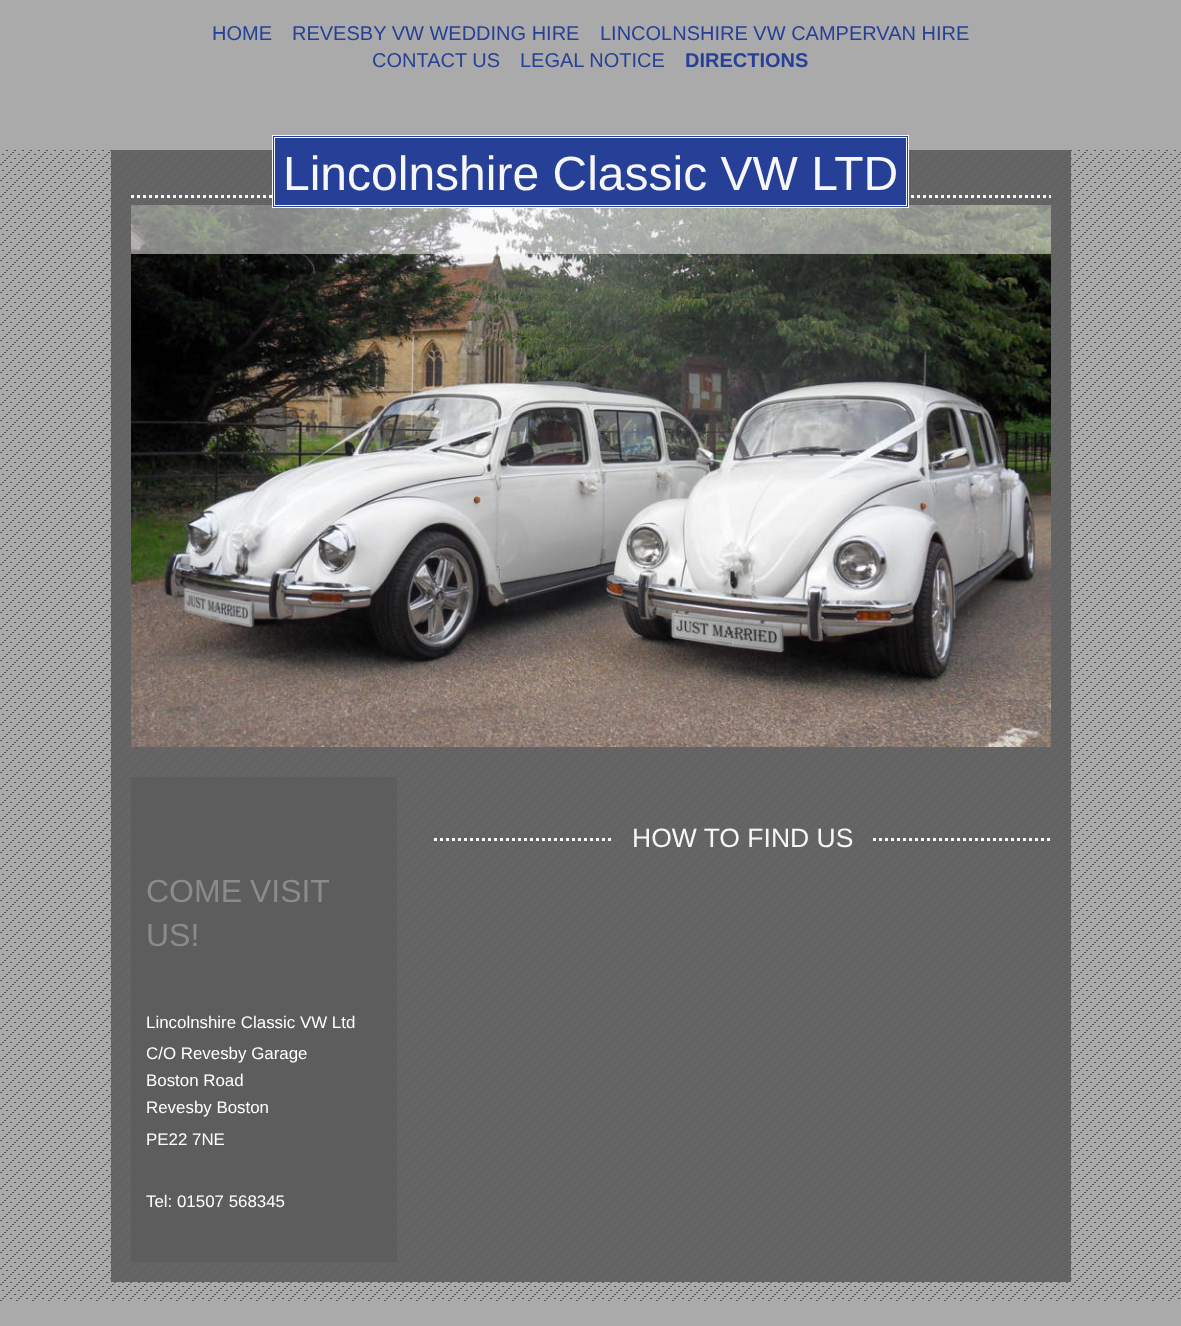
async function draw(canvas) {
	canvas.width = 1181;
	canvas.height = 1326;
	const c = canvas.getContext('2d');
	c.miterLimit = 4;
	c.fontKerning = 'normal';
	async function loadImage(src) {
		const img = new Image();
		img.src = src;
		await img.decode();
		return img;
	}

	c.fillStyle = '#aaa';
	c.fillRect(0, 0, 1181, 1326);
	c.drawImage(await loadImage('img1.png'), 0, 150, 1181, 1151);
	c.font = '20px Liberation Sans';
	c.fillStyle = '#274097';
	for (const [text, x, y] of [
		['HOME', 212, 40],
		['REVESBY VW WEDDING HIRE', 292, 40],
		['LINCOLNSHIRE VW CAMPERVAN HIRE', 600, 40],
		['CONTACT US', 372, 67],
		['LEGAL NOTICE', 520, 67],
	]) {
		c.fillText(text, x, y);
	}
	c.font = 'bold 20px Liberation Sans';
	c.fillText('DIRECTIONS', 685, 67);
	c.fillStyle = '#5d5d5de6';
	c.fillRect(111, 150, 960, 1132);
	c.beginPath();
	c.moveTo(131, 196.5);
	c.lineTo(1051, 196.5);
	c.strokeStyle = '#f7f7f7';
	c.lineWidth = 3;
	c.setLineDash([3, 3]);
	c.stroke();
	c.drawImage(await loadImage('img2.png'), 131, 205, 920, 542);
	c.fillStyle = '#ffffff80';
	c.fillRect(131, 205, 920, 49);
	c.fillStyle = '#274097';
	c.beginPath();
	c.rect(274, 137, 633, 69);
	c.fill();
	c.lineWidth = 2;
	c.setLineDash([]);
	c.stroke();
	c.strokeStyle = '#274097';
	c.lineWidth = 1;
	c.strokeRect(273.5, 136.5, 634, 70);
	c.strokeStyle = '#f4f5fa';
	c.strokeRect(272.5, 135.5, 636, 72);
	c.font = '48px Liberation Sans';
	c.fillStyle = '#f7f7f7';
	c.fillText('Lincolnshire Classic VW LTD', 283, 190);
	c.save();
	c.beginPath();
	c.rect(434, 817, 616, 44);
	c.clip();
	c.beginPath();
	c.moveTo(-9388, 839.5);
	c.lineTo(612, 839.5);
	c.strokeStyle = '#f7f7f7';
	c.lineWidth = 3;
	c.setLineDash([3, 3]);
	c.stroke();
	c.restore();
	c.font = '26.5px Liberation Sans';
	c.fillText('HOW TO FIND US', 632, 847);
	c.save();
	c.beginPath();
	c.rect(434, 817, 616, 44);
	c.clip();
	c.beginPath();
	c.moveTo(873, 839.5);
	c.lineTo(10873, 839.5);
	c.strokeStyle = '#f7f7f7';
	c.lineWidth = 3;
	c.setLineDash([3, 3]);
	c.stroke();
	c.restore();
	c.fillStyle = '#5d5d5d';
	c.fillRect(131, 777, 266, 485);
	c.wordSpacing = '-1px';
	c.font = '32px Liberation Sans';
	c.fillStyle = '#8b8b8b';
	c.fillText('COME VISIT', 146, 902);
	c.wordSpacing = '0px';
	c.fillText('US!', 146, 946);
	c.font = '16.9px Liberation Sans';
	c.fillStyle = '#fff';
	for (const [text, x, y] of [
		['Lincolnshire Classic VW Ltd', 146, 1028],
		['C/O Revesby Garage', 146, 1059],
		['Boston Road', 146, 1086],
		['Revesby Boston', 146, 1113],
		['PE22 7NE', 146, 1145],
		['Tel: 01507 568345', 146, 1207],
	]) {
		c.fillText(text, x, y);
	}
}

draw(document.querySelector('canvas'));
